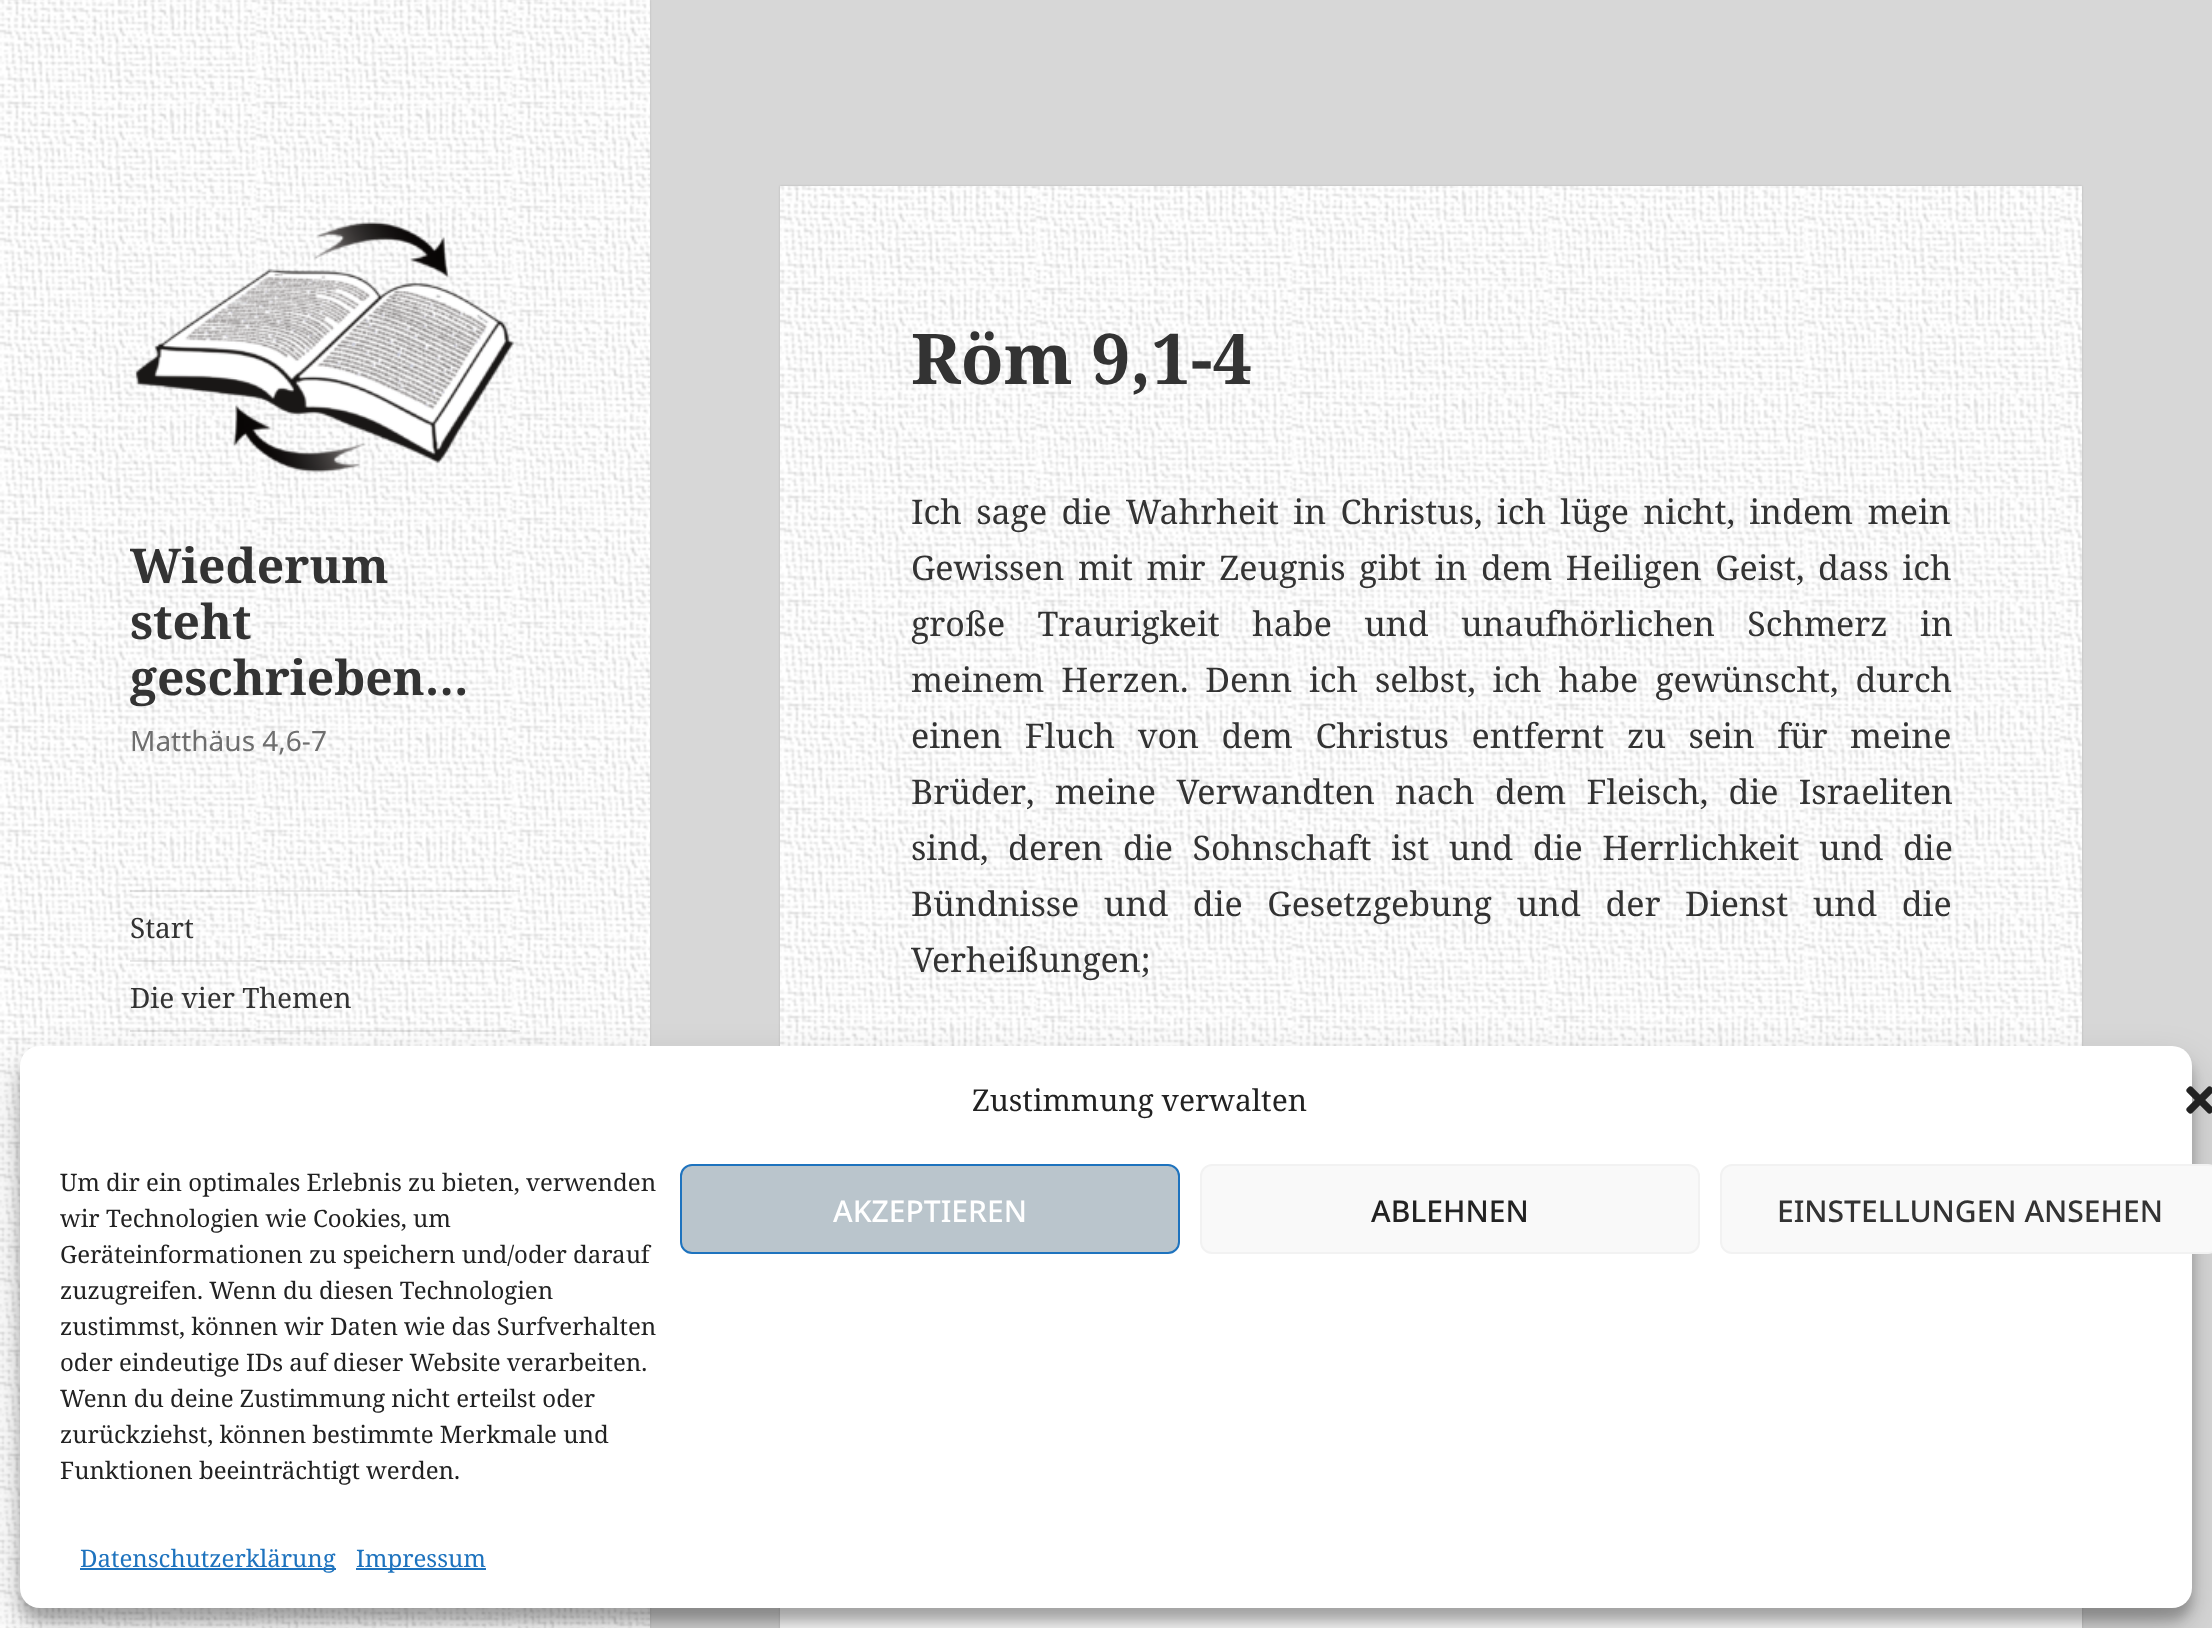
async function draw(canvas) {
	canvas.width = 2212;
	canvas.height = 1628;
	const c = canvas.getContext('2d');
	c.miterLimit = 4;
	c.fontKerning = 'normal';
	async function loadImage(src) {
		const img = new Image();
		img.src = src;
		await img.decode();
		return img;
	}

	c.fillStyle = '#d7d7d7';
	c.fillRect(0, 0, 2212, 1628);
	c.fillStyle = '#00000026';
	c.filter = 'blur(1px)';
	c.beginPath();
	c.rect(0, 0, 650, 1628);
	c.fill();
	c.filter = 'none';
	c.drawImage(await loadImage('img1.png'), 0, 0, 650, 1628);
	c.drawImage(await loadImage('img2.png'), 134, 222, 380, 251);
	c.font = 'bold 48px Noto Serif';
	c.fillStyle = '#333';
	for (const [text, x, y] of [
		['Wiederum', 130, 583],
		['steht', 130, 639],
		['geschrieben…', 130, 695],
	]) {
		c.fillText(text, x, y);
	}
	c.font = '28px Noto Sans';
	c.fillStyle = '#6e6e6e';
	c.fillText('Matthäus 4,6-7', 130, 751);
	c.fillStyle = '#3333331a';
	c.fillRect(130, 890, 390, 2);
	c.font = '28px Noto Serif';
	c.fillStyle = '#333';
	c.fillText('Start', 130, 938);
	c.fillStyle = '#3333331a';
	c.fillRect(130, 960, 390, 2);
	c.fillStyle = '#333';
	c.fillText('Die vier Themen', 130, 1008);
	c.fillStyle = '#3333331a';
	c.fillRect(130, 1030, 390, 2);
	c.fillStyle = '#00000026';
	c.filter = 'blur(1px)';
	c.beginPath();
	c.rect(780, 186, 1302, 932);
	c.fill();
	c.filter = 'none';
	c.drawImage(await loadImage('img3.png'), 780, 186, 1302, 860);
	c.font = 'bold 70px Noto Serif';
	c.fillStyle = '#333';
	c.fillText('Röm 9,1-4', 911, 384);
	c.wordSpacing = '5.5px';
	c.font = '34px Noto Serif';
	c.fillText('Ich sage die Wahrheit in Christus, ich lüge nicht, indem mein', 911, 524);
	c.wordSpacing = '4.75px';
	c.fillText('Gewissen mit mir Zeugnis gibt in dem Heiligen Geist, dass ich', 911, 580);
	c.wordSpacing = '23.5px';
	c.fillText('große Traurigkeit habe und unaufhörlichen Schmerz in', 911, 636);
	c.wordSpacing = '8px';
	c.fillText('meinem Herzen. Denn ich selbst, ich habe gewünscht, durch', 911, 692);
	c.wordSpacing = '13.75px';
	c.fillText('einen Fluch von dem Christus entfernt zu sein für meine', 911, 748);
	c.wordSpacing = '11.5px';
	c.fillText('Brüder, meine Verwandten nach dem Fleisch, die Israeliten', 911, 804);
	c.wordSpacing = '10.75px';
	c.fillText('sind, deren die Sohnschaft ist und die Herrlichkeit und die', 911, 860);
	c.wordSpacing = '15.75px';
	c.fillText('Bündnisse und die Gesetzgebung und der Dienst und die', 911, 916);
	c.wordSpacing = '0px';
	c.fillText('Verheißungen;', 911, 972);
	c.fillStyle = '#00000026';
	c.filter = 'blur(1px)';
	c.beginPath();
	c.rect(780, 1248, 1302, 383);
	c.fill();
	c.filter = 'none';
	c.fillStyle = '#fff';
	c.fillRect(780, 1608, 1302, 20);
	c.fillStyle = '#0000003b';
	c.filter = 'blur(6px)';
	c.beginPath();
	c.roundRect(20, 1058, 2172, 562, 20);
	c.fill();
	c.filter = 'none';
	c.fillStyle = '#00000030';
	c.filter = 'blur(20px)';
	c.beginPath();
	c.roundRect(20, 1066, 2172, 562, 20);
	c.fill();
	c.filter = 'none';
	c.fillStyle = '#fff';
	c.beginPath();
	c.roundRect(20, 1046, 2172, 562, 20);
	c.fill();
	c.font = '30px Noto Serif';
	c.fillStyle = '#222';
	c.fillText('Zustimmung verwalten', 972, 1111);
	c.drawImage(await loadImage('img4.png'), 2186, 1086, 26, 28);
	c.font = '24px Noto Serif';
	for (const [text, x, y] of [
		['Um dir ein optimales Erlebnis zu bieten, verwenden', 60, 1191],
		['wir Technologien wie Cookies, um', 60, 1227],
		['Geräteinformationen zu speichern und/oder darauf', 60, 1263],
		['zuzugreifen. Wenn du diesen Technologien', 60, 1299],
		['zustimmst, können wir Daten wie das Surfverhalten', 60, 1335],
		['oder eindeutige IDs auf dieser Website verarbeiten.', 60, 1371],
		['Wenn du deine Zustimmung nicht erteilst oder', 60, 1407],
		['zurückziehst, können bestimmte Merkmale und', 60, 1443],
		['Funktionen beeinträchtigt werden.', 60, 1479],
	]) {
		c.fillText(text, x, y);
	}
	c.fillStyle = '#bac5cc';
	c.beginPath();
	c.roundRect(681, 1165, 498, 88, 11);
	c.fill();
	c.strokeStyle = '#1e73be';
	c.lineWidth = 2;
	c.stroke();
	c.font = '500 30px Noto Sans';
	c.fillStyle = '#fff';
	c.fillText('AKZEPTIEREN', 833, 1222);
	c.fillStyle = '#f9f9f9';
	c.beginPath();
	c.roundRect(1201, 1165, 498, 88, 11);
	c.fill();
	c.strokeStyle = '#f2f2f2';
	c.stroke();
	c.fillStyle = '#222';
	c.fillText('ABLEHNEN', 1371, 1222);
	c.fillStyle = '#f9f9f9';
	c.beginPath();
	c.roundRect(1721, 1165, 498, 88, 11);
	c.fill();
	c.stroke();
	c.fillStyle = '#333';
	c.fillText('EINSTELLUNGEN ANSEHEN', 1777, 1222);
	c.fillStyle = '#1e73be';
	c.fillRect(80, 1568, 256, 2);
	c.font = '24px Noto Serif';
	c.fillText('Datenschutzerklärung', 80, 1567);
	c.fillRect(356, 1568, 130, 2);
	c.fillText('Impressum', 356, 1567);
}

draw(document.querySelector('canvas'));
